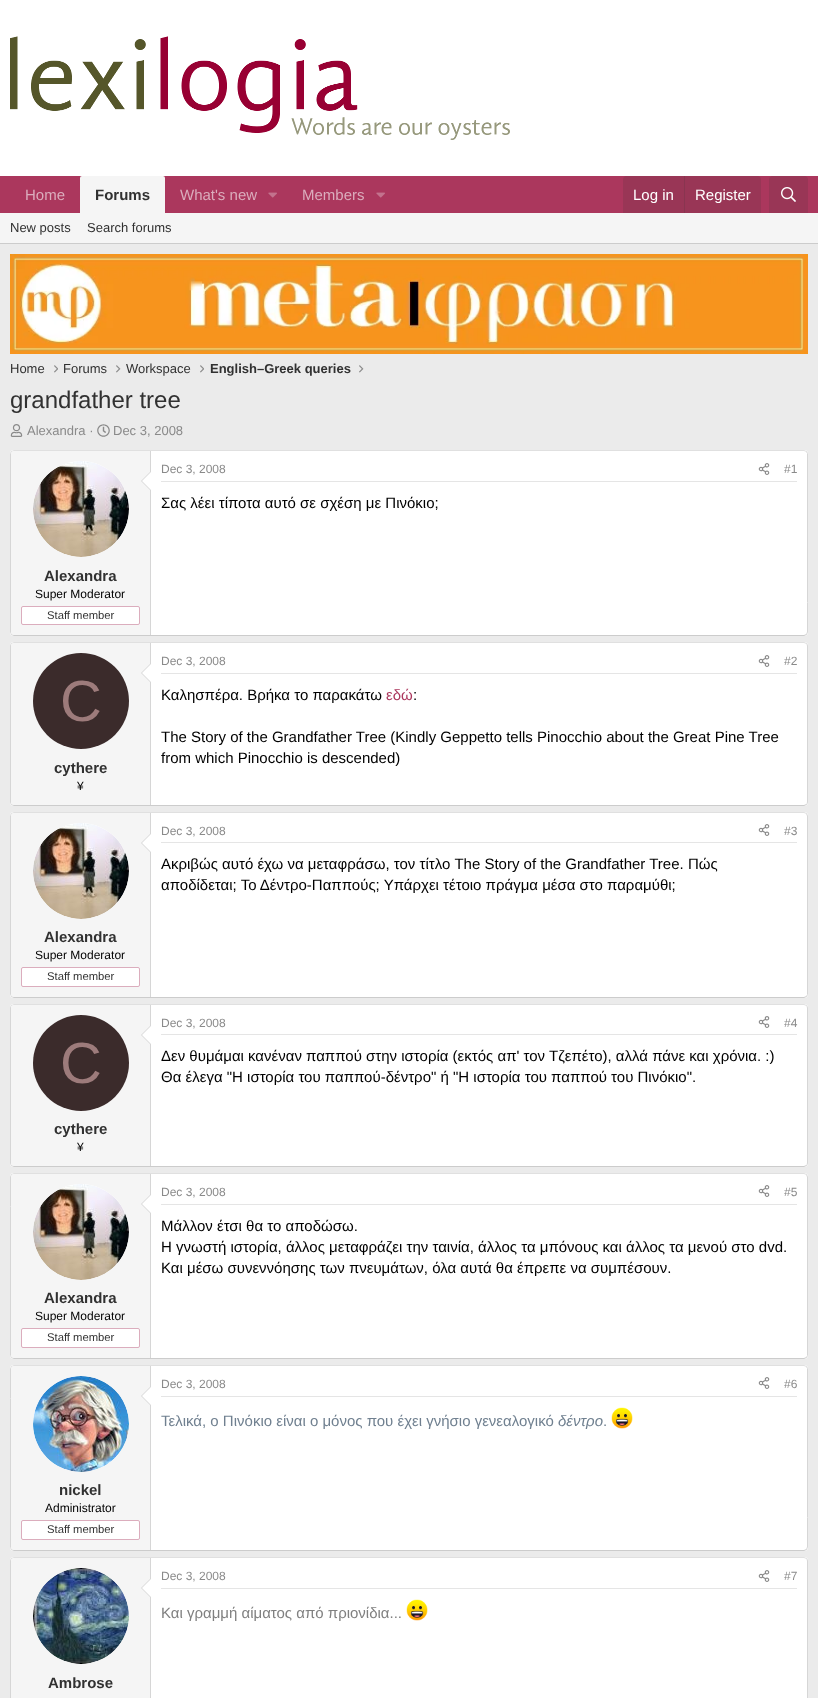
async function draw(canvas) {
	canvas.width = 818;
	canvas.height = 1698;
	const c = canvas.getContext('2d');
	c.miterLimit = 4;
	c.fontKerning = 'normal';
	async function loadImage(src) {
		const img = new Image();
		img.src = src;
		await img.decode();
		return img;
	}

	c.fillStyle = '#ebebeb';
	c.fillRect(0, 0, 818, 1698);
	c.fillStyle = '#fff';
	c.fillRect(0, 0, 818, 176);
	c.drawImage(await loadImage('img1.png'), 10, 36, 500, 104);
	c.fillStyle = '#ab375d';
	c.fillRect(0, 176, 818, 37);
	c.font = '15px Liberation Sans';
	c.fillStyle = '#dbadbd';
	c.fillText('Home', 25, 200);
	c.fillStyle = '#f5f5f5';
	c.beginPath();
	c.roundRect(80, 176, 85, 37, [2, 2, 0, 0]);
	c.fill();
	c.font = 'bold 15px Liberation Sans';
	c.fillStyle = '#313131';
	c.fillText('Forums', 95, 200);
	c.font = '15px Liberation Sans';
	c.fillStyle = '#dbadbd';
	c.fillText('What\'s new', 180, 200);
	c.drawImage(await loadImage('img2.png'), 268, 192, 9, 6);
	c.fillText('Members', 302, 200);
	c.drawImage(await loadImage('img2.png'), 376, 192, 9, 6);
	c.fillStyle = '#993656';
	c.beginPath();
	c.roundRect(623, 176, 138, 37, [4, 4, 0, 0]);
	c.fill();
	c.fillStyle = '#fff';
	c.fillText('Log in', 633, 200);
	c.fillStyle = '#893550';
	c.fillRect(684, 176, 1, 37);
	c.fillStyle = '#fff';
	c.fillText('Register', 695, 200);
	c.fillStyle = '#993656';
	c.beginPath();
	c.roundRect(769, 176, 39, 37, [4, 4, 0, 0]);
	c.fill();
	c.drawImage(await loadImage('img3.png'), 781, 187, 15, 15);
	c.fillStyle = '#f5f5f5';
	c.fillRect(0, 213, 818, 30);
	c.fillStyle = '#ccc';
	c.fillRect(0, 243, 818, 1);
	c.font = '13px Liberation Sans';
	c.fillStyle = '#313131';
	c.fillText('New posts', 10, 232);
	c.fillText('Search forums', 87, 232);
	c.drawImage(await loadImage('img4.png'), 10, 254, 798, 100);
	c.fillText('Home', 10, 373);
	c.drawImage(await loadImage('img5.png'), 54, 365, 4, 8);
	c.fillText('Forums', 63, 373);
	c.drawImage(await loadImage('img6.png'), 116, 365, 5, 8);
	c.fillText('Workspace', 126, 373);
	c.drawImage(await loadImage('img5.png'), 200, 365, 4, 8);
	c.font = 'bold 13px Liberation Sans';
	c.fillText('English–Greek queries', 210, 373);
	c.drawImage(await loadImage('img6.png'), 359, 365, 5, 8);
	c.font = '24px Liberation Sans';
	c.fillText('grandfather tree', 10, 408);
	c.drawImage(await loadImage('img7.png'), 10, 424, 13, 13);
	c.font = '13px Liberation Sans';
	c.fillStyle = '#8a8a8a';
	c.fillText('Alexandra ·', 27, 435);
	c.drawImage(await loadImage('img8.png'), 97, 424, 13, 13);
	c.fillText('Dec 3, 2008', 113, 435);
	c.fillStyle = '#fff';
	c.beginPath();
	c.roundRect(10, 450, 798, 186, 4);
	c.fill();
	c.beginPath();
	c.moveTo(11.5, 451.5);
	c.lineTo(14, 450.5);
	c.lineTo(804, 450.5);
	c.lineTo(806.5, 451.5);
	c.strokeStyle = '#e0e0e0';
	c.stroke();
	c.beginPath();
	c.moveTo(806.5, 451.5);
	c.lineTo(807.5, 453.5);
	c.lineTo(807.5, 602.5);
	c.lineTo(807.5, 632);
	c.lineTo(806.5, 634.5);
	c.strokeStyle = '#d6d6d6';
	c.stroke();
	c.beginPath();
	c.moveTo(806.5, 634.5);
	c.lineTo(804, 635.5);
	c.lineTo(14, 635.5);
	c.lineTo(11.5, 634.5);
	c.strokeStyle = '#ccc';
	c.stroke();
	c.beginPath();
	c.moveTo(11.5, 634.5);
	c.lineTo(10.5, 632);
	c.lineTo(10.5, 453.5);
	c.lineTo(11.5, 451.5);
	c.strokeStyle = '#d6d6d6';
	c.stroke();
	c.fillStyle = '#e5e5e5';
	c.fillRect(161, 481, 636, 1);
	c.font = '12px Liberation Sans';
	c.fillStyle = '#8a8a8a';
	c.fillText('Dec 3, 2008', 161, 473);
	c.drawImage(await loadImage('img9.png'), 758, 463, 12, 12);
	c.fillText('#1', 784, 473);
	c.font = '15px Liberation Sans';
	c.fillStyle = '#000';
	c.fillText('Σας λέει τίποτα αυτό σε σχέση με Πινόκιο;', 161, 508);
	c.fillStyle = '#f5f5f5';
	c.beginPath();
	c.roundRect(11, 451, 140, 184, [3, 0, 0, 3]);
	c.fill();
	c.fillStyle = '#d6d6d6';
	c.fillRect(150, 451, 1, 184);
	c.fillStyle = '#fff';
	c.beginPath();
	c.arc(81, 509, 48, 0, 2 * Math.PI);
	c.fill();
	c.drawImage(await loadImage('img10.png'), 33, 461, 96, 96);
	c.fillStyle = '#d6d6d6';
	c.beginPath();
	c.moveTo(151, 471);
	c.lineTo(151, 491);
	c.lineTo(141, 481);
	c.closePath();
	c.fill();
	c.fillStyle = '#fff';
	c.beginPath();
	c.moveTo(151, 472);
	c.lineTo(151, 490);
	c.lineTo(142, 481);
	c.closePath();
	c.fill();
	c.font = 'bold 15px Liberation Sans';
	c.fillStyle = '#313131';
	c.fillText('Alexandra', 44, 581);
	c.font = '12px Liberation Sans';
	c.fillStyle = '#000';
	c.fillText('Super Moderator', 35, 598);
	c.fillStyle = '#fff';
	c.beginPath();
	c.roundRect(21.5, 606.5, 118, 18, 1.5);
	c.fill();
	c.strokeStyle = '#dbadbd';
	c.stroke();
	c.font = '11.25px Liberation Sans';
	c.fillStyle = '#313131';
	c.fillText('Staff member', 47, 619);
	c.fillStyle = '#fff';
	c.beginPath();
	c.roundRect(10, 642, 798, 164, 4);
	c.fill();
	c.beginPath();
	c.moveTo(11.5, 643.5);
	c.lineTo(14, 642.5);
	c.lineTo(804, 642.5);
	c.lineTo(806.5, 643.5);
	c.strokeStyle = '#e0e0e0';
	c.stroke();
	c.beginPath();
	c.moveTo(806.5, 643.5);
	c.bezierCurveTo(807, 644, 807.5, 645, 807.5, 646);
	c.lineTo(807.5, 802);
	c.bezierCurveTo(807.5, 803, 807, 804, 806.5, 804.5);
	c.strokeStyle = '#d6d6d6';
	c.stroke();
	c.beginPath();
	c.moveTo(806.5, 804.5);
	c.lineTo(804, 805.5);
	c.lineTo(14, 805.5);
	c.lineTo(11.5, 804.5);
	c.strokeStyle = '#ccc';
	c.stroke();
	c.beginPath();
	c.moveTo(11.5, 804.5);
	c.bezierCurveTo(11, 804, 10.5, 803, 10.5, 802);
	c.lineTo(10.5, 646);
	c.bezierCurveTo(10.5, 645, 11, 644, 11.5, 643.5);
	c.strokeStyle = '#d6d6d6';
	c.stroke();
	c.fillStyle = '#f5f5f5';
	c.beginPath();
	c.roundRect(11, 643, 140, 162, [3, 0, 0, 3]);
	c.fill();
	c.fillStyle = '#d6d6d6';
	c.fillRect(150, 643, 1, 162);
	c.beginPath();
	c.moveTo(151, 663);
	c.lineTo(151, 683);
	c.lineTo(141, 673);
	c.closePath();
	c.fill();
	c.fillStyle = '#fff';
	c.beginPath();
	c.moveTo(151, 664);
	c.lineTo(151, 682);
	c.lineTo(142, 673);
	c.closePath();
	c.fill();
	c.fillStyle = '#3b2b2b';
	c.beginPath();
	c.arc(81, 701, 48, 0, 2 * Math.PI);
	c.fill();
	c.font = '58px Liberation Sans';
	c.fillStyle = '#9d7b7b';
	c.fillText('C', 60, 721);
	c.font = 'bold 15px Liberation Sans';
	c.fillStyle = '#313131';
	c.fillText('cythere', 54, 773);
	c.font = '12px Liberation Sans';
	c.fillStyle = '#000';
	c.fillText('¥', 77, 790);
	c.fillStyle = '#e5e5e5';
	c.fillRect(161, 673, 636, 1);
	c.fillStyle = '#8a8a8a';
	c.fillText('Dec 3, 2008', 161, 665);
	c.drawImage(await loadImage('img9.png'), 758, 655, 12, 12);
	c.fillText('#2', 784, 665);
	c.font = '15px Liberation Sans';
	c.fillStyle = '#000';
	c.fillText('Καλησπέρα. Βρήκα το παρακάτω', 161, 700);
	c.fillStyle = '#ab375d';
	c.fillText('εδώ', 386, 700);
	c.fillStyle = '#000';
	for (const [text, x, y] of [
		[':', 413, 700],
		['The Story of the Grandfather Tree (Kindly Geppetto tells Pinocchio about the Great Pine Tree', 161, 742],
		['from which Pinocchio is descended)', 161, 763],
	]) {
		c.fillText(text, x, y);
	}
	c.fillStyle = '#fff';
	c.beginPath();
	c.roundRect(10, 812, 798, 186, 4);
	c.fill();
	c.beginPath();
	c.moveTo(11.5, 813.5);
	c.lineTo(14, 812.5);
	c.lineTo(804, 812.5);
	c.lineTo(806.5, 813.5);
	c.strokeStyle = '#e0e0e0';
	c.stroke();
	c.beginPath();
	c.moveTo(806.5, 813.5);
	c.lineTo(807.5, 816);
	c.lineTo(807.5, 994.5);
	c.lineTo(806.5, 996.5);
	c.strokeStyle = '#d6d6d6';
	c.stroke();
	c.beginPath();
	c.moveTo(806.5, 996.5);
	c.lineTo(804, 997.5);
	c.lineTo(14, 997.5);
	c.lineTo(11.5, 996.5);
	c.strokeStyle = '#ccc';
	c.stroke();
	c.beginPath();
	c.moveTo(11.5, 996.5);
	c.lineTo(10.5, 994);
	c.lineTo(10.5, 815.5);
	c.lineTo(11.5, 813.5);
	c.strokeStyle = '#d6d6d6';
	c.stroke();
	c.fillStyle = '#e5e5e5';
	c.fillRect(161, 842, 636, 1);
	c.font = '12px Liberation Sans';
	c.fillStyle = '#8a8a8a';
	c.fillText('Dec 3, 2008', 161, 835);
	c.drawImage(await loadImage('img9.png'), 758, 824, 12, 12);
	c.fillText('#3', 784, 835);
	c.font = '15px Liberation Sans';
	c.fillStyle = '#000';
	c.fillText('Ακριβώς αυτό έχω να μεταφράσω, τον τίτλο The Story of the Grandfather Tree. Πώς', 161, 869);
	c.fillText('αποδίδεται; Το Δέντρο-Παππούς; Υπάρχει τέτοιο πράγμα μέσα στο παραμύθι;', 161, 890);
	c.fillStyle = '#f5f5f5';
	c.beginPath();
	c.roundRect(11, 813, 140, 184, [3, 0, 0, 3]);
	c.fill();
	c.fillStyle = '#d6d6d6';
	c.fillRect(150, 813, 1, 184);
	c.fillStyle = '#fff';
	c.beginPath();
	c.arc(81, 871, 48, 0, 2 * Math.PI);
	c.fill();
	c.drawImage(await loadImage('img11.png'), 33, 823, 96, 96);
	c.fillStyle = '#d6d6d6';
	c.beginPath();
	c.moveTo(151, 833);
	c.lineTo(151, 853);
	c.lineTo(141, 843);
	c.closePath();
	c.fill();
	c.fillStyle = '#fff';
	c.beginPath();
	c.moveTo(151, 834);
	c.lineTo(151, 852);
	c.lineTo(142, 843);
	c.closePath();
	c.fill();
	c.font = 'bold 15px Liberation Sans';
	c.fillStyle = '#313131';
	c.fillText('Alexandra', 44, 942);
	c.font = '12px Liberation Sans';
	c.fillStyle = '#000';
	c.fillText('Super Moderator', 35, 959);
	c.fillStyle = '#fff';
	c.beginPath();
	c.roundRect(21.5, 967.5, 118, 19, 1.5);
	c.fill();
	c.strokeStyle = '#dbadbd';
	c.stroke();
	c.font = '11.25px Liberation Sans';
	c.fillStyle = '#313131';
	c.fillText('Staff member', 47, 980);
	c.fillStyle = '#fff';
	c.beginPath();
	c.roundRect(10, 1004, 798, 163, 4);
	c.fill();
	c.beginPath();
	c.moveTo(11.5, 1005.5);
	c.lineTo(14, 1004.5);
	c.lineTo(804, 1004.5);
	c.lineTo(806.5, 1005.5);
	c.strokeStyle = '#e0e0e0';
	c.stroke();
	c.beginPath();
	c.moveTo(806.5, 1005.5);
	c.bezierCurveTo(807, 1006, 807.5, 1007, 807.5, 1008);
	c.lineTo(807.5, 1163);
	c.bezierCurveTo(807.5, 1164, 807, 1165, 806.5, 1165.5);
	c.strokeStyle = '#d6d6d6';
	c.stroke();
	c.beginPath();
	c.moveTo(806.5, 1165.5);
	c.lineTo(804, 1166.5);
	c.lineTo(14, 1166.5);
	c.lineTo(11.5, 1165.5);
	c.strokeStyle = '#ccc';
	c.stroke();
	c.beginPath();
	c.moveTo(11.5, 1165.5);
	c.bezierCurveTo(11, 1165, 10.5, 1164, 10.5, 1163);
	c.lineTo(10.5, 1008);
	c.bezierCurveTo(10.5, 1007, 11, 1006, 11.5, 1005.5);
	c.strokeStyle = '#d6d6d6';
	c.stroke();
	c.fillStyle = '#f5f5f5';
	c.beginPath();
	c.roundRect(11, 1005, 140, 161, [3, 0, 0, 3]);
	c.fill();
	c.fillStyle = '#d6d6d6';
	c.fillRect(150, 1005, 1, 161);
	c.beginPath();
	c.moveTo(151, 1025);
	c.lineTo(151, 1045);
	c.lineTo(141, 1035);
	c.closePath();
	c.fill();
	c.fillStyle = '#fff';
	c.beginPath();
	c.moveTo(151, 1026);
	c.lineTo(151, 1044);
	c.lineTo(142, 1035);
	c.closePath();
	c.fill();
	c.fillStyle = '#3b2b2b';
	c.beginPath();
	c.arc(81, 1063, 48, 0, 2 * Math.PI);
	c.fill();
	c.font = '58px Liberation Sans';
	c.fillStyle = '#9d7b7b';
	c.fillText('C', 60, 1083);
	c.font = 'bold 15px Liberation Sans';
	c.fillStyle = '#313131';
	c.fillText('cythere', 54, 1134);
	c.font = '12px Liberation Sans';
	c.fillStyle = '#000';
	c.fillText('¥', 77, 1151);
	c.fillStyle = '#e5e5e5';
	c.fillRect(161, 1034, 636, 1);
	c.fillStyle = '#8a8a8a';
	c.fillText('Dec 3, 2008', 161, 1027);
	c.drawImage(await loadImage('img12.png'), 758, 1016, 12, 12);
	c.fillText('#4', 784, 1027);
	c.font = '15px Liberation Sans';
	c.fillStyle = '#000';
	c.fillText('Δεν θυμάμαι κανέναν παππού στην ιστορία (εκτός απ\' τον Τζεπέτο), αλλά πάνε και χρόνια. :)', 161, 1061);
	c.fillText('Θα έλεγα "Η ιστορία του παππού-δέντρο" ή "Η ιστορία του παππού του Πινόκιο".', 161, 1082);
	c.fillStyle = '#fff';
	c.beginPath();
	c.roundRect(10, 1173, 798, 186, 4);
	c.fill();
	c.beginPath();
	c.moveTo(11.5, 1174.5);
	c.lineTo(14, 1173.5);
	c.lineTo(804, 1173.5);
	c.lineTo(806.5, 1174.5);
	c.strokeStyle = '#e0e0e0';
	c.stroke();
	c.beginPath();
	c.moveTo(806.5, 1174.5);
	c.lineTo(807.5, 1177);
	c.lineTo(807.5, 1355.5);
	c.lineTo(806.5, 1357.5);
	c.strokeStyle = '#d6d6d6';
	c.stroke();
	c.beginPath();
	c.moveTo(806.5, 1357.5);
	c.lineTo(804, 1358.5);
	c.lineTo(14, 1358.5);
	c.lineTo(11.5, 1357.5);
	c.strokeStyle = '#ccc';
	c.stroke();
	c.beginPath();
	c.moveTo(11.5, 1357.5);
	c.lineTo(10.5, 1355.5);
	c.lineTo(10.5, 1206.5);
	c.lineTo(10.5, 1177);
	c.lineTo(11.5, 1174.5);
	c.strokeStyle = '#d6d6d6';
	c.stroke();
	c.fillStyle = '#e5e5e5';
	c.fillRect(161, 1204, 636, 1);
	c.font = '12px Liberation Sans';
	c.fillStyle = '#8a8a8a';
	c.fillText('Dec 3, 2008', 161, 1196);
	c.drawImage(await loadImage('img9.png'), 758, 1185, 12, 12);
	c.fillText('#5', 784, 1196);
	c.font = '15px Liberation Sans';
	c.fillStyle = '#000';
	for (const [text, x, y] of [
		['Μάλλον έτσι θα το αποδώσω.', 161, 1231],
		['Η γνωστή ιστορία, άλλος μεταφράζει την ταινία, άλλος τα μπόνους και άλλος τα μενού στο dvd.', 161, 1252],
		['Και μέσω συνεννόησης των πνευμάτων, όλα αυτά θα έπρεπε να συμπέσουν.', 161, 1273],
	]) {
		c.fillText(text, x, y);
	}
	c.fillStyle = '#f5f5f5';
	c.beginPath();
	c.roundRect(11, 1174, 140, 184, [3, 0, 0, 3]);
	c.fill();
	c.fillStyle = '#d6d6d6';
	c.fillRect(150, 1174, 1, 184);
	c.fillStyle = '#fff';
	c.beginPath();
	c.arc(81, 1232, 48, 0, 2 * Math.PI);
	c.fill();
	c.drawImage(await loadImage('img13.png'), 33, 1184, 96, 96);
	c.fillStyle = '#d6d6d6';
	c.beginPath();
	c.moveTo(151, 1194);
	c.lineTo(151, 1214);
	c.lineTo(141, 1204);
	c.closePath();
	c.fill();
	c.fillStyle = '#fff';
	c.beginPath();
	c.moveTo(151, 1195);
	c.lineTo(151, 1213);
	c.lineTo(142, 1204);
	c.closePath();
	c.fill();
	c.font = 'bold 15px Liberation Sans';
	c.fillStyle = '#313131';
	c.fillText('Alexandra', 44, 1303);
	c.font = '12px Liberation Sans';
	c.fillStyle = '#000';
	c.fillText('Super Moderator', 35, 1320);
	c.fillStyle = '#fff';
	c.beginPath();
	c.roundRect(21.5, 1328.5, 118, 19, 1.5);
	c.fill();
	c.strokeStyle = '#dbadbd';
	c.stroke();
	c.font = '11.25px Liberation Sans';
	c.fillStyle = '#313131';
	c.fillText('Staff member', 47, 1341);
	c.fillStyle = '#fff';
	c.beginPath();
	c.roundRect(10, 1365, 798, 186, 4);
	c.fill();
	c.beginPath();
	c.moveTo(11.5, 1366.5);
	c.lineTo(14, 1365.5);
	c.lineTo(804, 1365.5);
	c.lineTo(806.5, 1366.5);
	c.strokeStyle = '#e0e0e0';
	c.stroke();
	c.beginPath();
	c.moveTo(806.5, 1366.5);
	c.lineTo(807.5, 1368.5);
	c.lineTo(807.5, 1517.5);
	c.lineTo(807.5, 1547);
	c.lineTo(806.5, 1549.5);
	c.strokeStyle = '#d6d6d6';
	c.stroke();
	c.beginPath();
	c.moveTo(806.5, 1549.5);
	c.lineTo(804, 1550.5);
	c.lineTo(14, 1550.5);
	c.lineTo(11.5, 1549.5);
	c.strokeStyle = '#ccc';
	c.stroke();
	c.beginPath();
	c.moveTo(11.5, 1549.5);
	c.lineTo(10.5, 1547.5);
	c.lineTo(10.5, 1398.5);
	c.lineTo(10.5, 1369);
	c.lineTo(11.5, 1366.5);
	c.strokeStyle = '#d6d6d6';
	c.stroke();
	c.fillStyle = '#e5e5e5';
	c.fillRect(161, 1396, 636, 1);
	c.font = '12px Liberation Sans';
	c.fillStyle = '#8a8a8a';
	c.fillText('Dec 3, 2008', 161, 1388);
	c.drawImage(await loadImage('img9.png'), 758, 1377, 12, 12);
	c.fillText('#6', 784, 1388);
	c.font = '15px Liberation Sans';
	c.fillStyle = '#708090';
	c.fillText('Τελικά, ο Πινόκιο είναι ο μόνος που έχει γνήσιο γενεαλογικό', 161, 1426);
	c.font = 'italic 15px Liberation Sans';
	c.fillText('δέντρο', 558, 1426);
	c.font = '15px Liberation Sans';
	c.fillText('.', 603, 1426);
	c.drawImage(await loadImage('img14.png'), 611, 1407, 22, 22);
	c.fillStyle = '#f5f5f5';
	c.beginPath();
	c.roundRect(11, 1366, 140, 184, [3, 0, 0, 3]);
	c.fill();
	c.fillStyle = '#d6d6d6';
	c.fillRect(150, 1366, 1, 184);
	c.fillStyle = '#fff';
	c.beginPath();
	c.arc(81, 1424, 48, 0, 2 * Math.PI);
	c.fill();
	c.drawImage(await loadImage('img15.png'), 33, 1376, 96, 96);
	c.fillStyle = '#d6d6d6';
	c.beginPath();
	c.moveTo(151, 1386);
	c.lineTo(151, 1406);
	c.lineTo(141, 1396);
	c.closePath();
	c.fill();
	c.fillStyle = '#fff';
	c.beginPath();
	c.moveTo(151, 1387);
	c.lineTo(151, 1405);
	c.lineTo(142, 1396);
	c.closePath();
	c.fill();
	c.font = 'bold 15px Liberation Sans';
	c.fillStyle = '#313131';
	c.fillText('nickel', 59, 1495);
	c.font = '12px Liberation Sans';
	c.fillStyle = '#000';
	c.fillText('Administrator', 45, 1512);
	c.fillStyle = '#fff';
	c.beginPath();
	c.roundRect(21.5, 1520.5, 118, 19, 1.5);
	c.fill();
	c.strokeStyle = '#dbadbd';
	c.stroke();
	c.font = '11.25px Liberation Sans';
	c.fillStyle = '#313131';
	c.fillText('Staff member', 47, 1533);
	c.fillStyle = '#fff';
	c.beginPath();
	c.roundRect(10, 1557, 798, 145, 4);
	c.fill();
	c.beginPath();
	c.moveTo(11.5, 1558.5);
	c.lineTo(14, 1557.5);
	c.lineTo(804, 1557.5);
	c.lineTo(806.5, 1558.5);
	c.strokeStyle = '#e0e0e0';
	c.stroke();
	c.beginPath();
	c.moveTo(806.5, 1558.5);
	c.bezierCurveTo(807, 1559, 807.5, 1560, 807.5, 1561);
	c.lineTo(807.5, 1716);
	c.bezierCurveTo(807.5, 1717, 807, 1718, 806.5, 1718.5);
	c.strokeStyle = '#d6d6d6';
	c.stroke();
	c.beginPath();
	c.moveTo(11.5, 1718.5);
	c.bezierCurveTo(11, 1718, 10.5, 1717, 10.5, 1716);
	c.lineTo(10.5, 1561);
	c.bezierCurveTo(10.5, 1560, 11, 1559, 11.5, 1558.5);
	c.stroke();
	c.fillStyle = '#e5e5e5';
	c.fillRect(161, 1588, 636, 1);
	c.font = '12px Liberation Sans';
	c.fillStyle = '#8a8a8a';
	c.fillText('Dec 3, 2008', 161, 1580);
	c.drawImage(await loadImage('img9.png'), 758, 1570, 12, 12);
	c.fillText('#7', 784, 1580);
	c.font = '15px Liberation Sans';
	c.fillStyle = '#808080';
	c.fillText('Και γραμμή αίματος από πριονίδια...', 161, 1618);
	c.drawImage(await loadImage('img16.png'), 406, 1599, 22, 22);
	c.fillStyle = '#f5f5f5';
	c.beginPath();
	c.moveTo(14, 1558);
	c.lineTo(151, 1558);
	c.lineTo(151, 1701);
	c.lineTo(14, 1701);
	c.bezierCurveTo(12.5, 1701, 11, 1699.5, 11, 1698);
	c.lineTo(11, 1561);
	c.bezierCurveTo(11, 1559.5, 12.5, 1558, 14, 1558);
	c.closePath();
	c.fill();
	c.fillStyle = '#d6d6d6';
	c.fillRect(150, 1558, 1, 140);
	c.fillStyle = '#fff';
	c.beginPath();
	c.arc(81, 1616, 48, 0, 2 * Math.PI);
	c.fill();
	c.drawImage(await loadImage('img17.png'), 33, 1568, 96, 96);
	c.fillStyle = '#d6d6d6';
	c.beginPath();
	c.moveTo(151, 1578);
	c.lineTo(151, 1598);
	c.lineTo(141, 1588);
	c.closePath();
	c.fill();
	c.fillStyle = '#fff';
	c.beginPath();
	c.moveTo(151, 1579);
	c.lineTo(151, 1597);
	c.lineTo(142, 1588);
	c.closePath();
	c.fill();
	c.font = 'bold 15px Liberation Sans';
	c.fillStyle = '#313131';
	c.fillText('Ambrose', 48, 1688);
}

draw(document.querySelector('canvas'));
